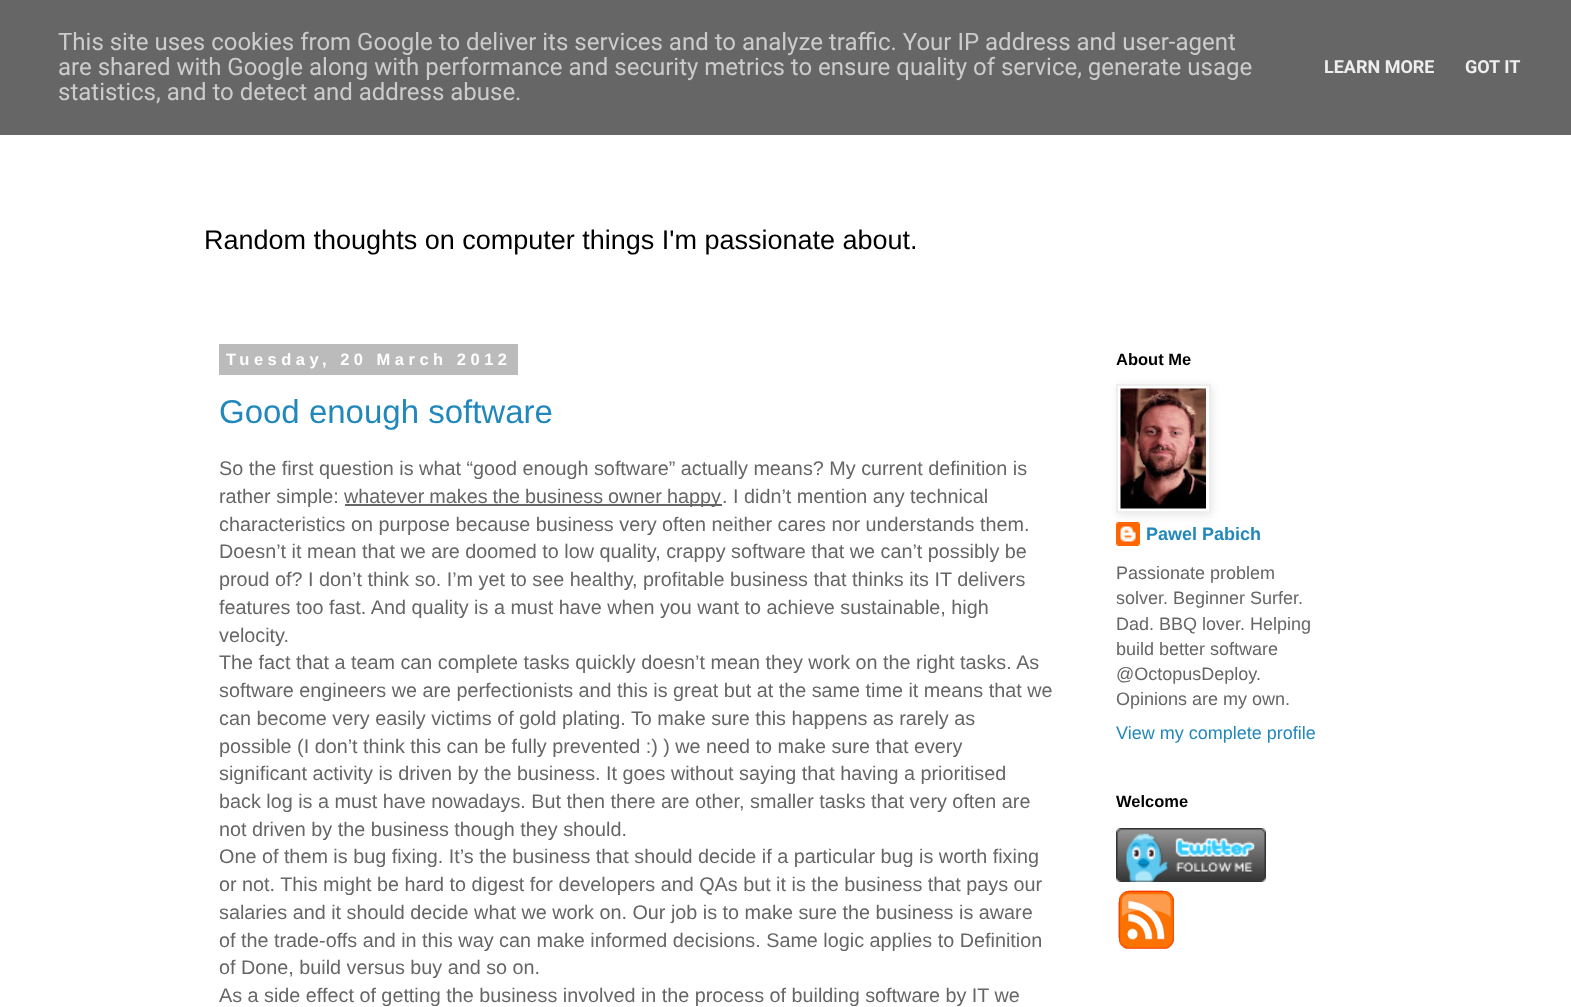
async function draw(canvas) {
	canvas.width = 1571;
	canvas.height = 1007;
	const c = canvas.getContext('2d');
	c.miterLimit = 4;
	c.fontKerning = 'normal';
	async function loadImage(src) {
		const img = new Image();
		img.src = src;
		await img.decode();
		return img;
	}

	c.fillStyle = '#fff';
	c.fillRect(0, 0, 1571, 1007);
	c.fillStyle = '#666';
	c.fillRect(0, 0, 1571, 135);
	c.font = '24px Roboto';
	c.fillStyle = '#ccc';
	for (const [text, x, y] of [
		['This site uses cookies from Google to deliver its services and to analyze traffic. Your IP address and user-agent', 58, 50],
		['are shared with Google along with performance and security metrics to ensure quality of service, generate usage', 58, 75],
		['statistics, and to detect and address abuse.', 58, 100],
	]) {
		c.fillText(text, x, y);
	}
	c.font = 'bold 18px Roboto';
	c.fillStyle = '#eee';
	c.fillText('LEARN MORE', 1324, 73);
	c.fillText('GOT IT', 1465, 73);
	c.font = '27px Liberation Sans';
	c.fillStyle = '#000';
	c.fillText('Random thoughts on computer things I\'m passionate about.', 204, 249);
	c.fillStyle = '#bbb';
	c.fillRect(219, 344, 299, 31);
	c.letterSpacing = '4.5px';
	c.font = 'bold 16.5px Liberation Sans';
	c.fillStyle = '#fff';
	c.fillText('Tuesday, 20 March 2012', 226, 365);
	c.letterSpacing = '0px';
	c.font = '33px Liberation Sans';
	c.fillStyle = '#28b';
	c.fillText('Good enough software', 219, 423);
	c.font = '19.8px Liberation Sans';
	c.fillStyle = '#666';
	c.fillText('So the first question is what “good enough software” actually means? My current definition is', 219, 475);
	c.fillText('rather simple:', 219, 503);
	c.fillRect(345, 504, 377, 2);
	c.wordSpacing = '-0.5px';
	c.fillText('whatever makes the business owner happy', 344, 503);
	c.wordSpacing = '0px';
	for (const [text, x, y] of [
		['. I didn’t mention any technical', 722, 503],
		['characteristics on purpose because business very often neither cares nor understands them.', 219, 531],
		['Doesn’t it mean that we are doomed to low quality, crappy software that we can’t possibly be', 219, 558],
		['proud of? I don’t think so. I’m yet to see healthy, profitable business that thinks its IT delivers', 219, 586],
		['features too fast. And quality is a must have when you want to achieve sustainable, high', 219, 614],
		['velocity.', 219, 642],
		['The fact that a team can complete tasks quickly doesn’t mean they work on the right tasks. As', 219, 669],
		['software engineers we are perfectionists and this is great but at the same time it means that we', 219, 697],
		['can become very easily victims of gold plating. To make sure this happens as rarely as', 219, 725],
		['possible (I don’t think this can be fully prevented :) ) we need to make sure that every', 219, 753],
		['significant activity is driven by the business. It goes without saying that having a prioritised', 219, 780],
		['back log is a must have nowadays. But then there are other, smaller tasks that very often are', 219, 808],
		['not driven by the business though they should.', 219, 836],
		['One of them is bug fixing. It’s the business that should decide if a particular bug is worth fixing', 219, 863],
		['or not. This might be hard to digest for developers and QAs but it is the business that pays our', 219, 891],
		['salaries and it should decide what we work on. Our job is to make sure the business is aware', 219, 919],
		['of the trade-offs and in this way can make informed decisions. Same logic applies to Definition', 219, 947],
		['of Done, build versus buy and so on.', 219, 974],
		['As a side effect of getting the business involved in the process of building software by IT we', 219, 1002],
	]) {
		c.fillText(text, x, y);
	}
	c.font = 'bold 16.5px Liberation Sans';
	c.fillStyle = '#000';
	c.fillText('About Me', 1116, 365);
	c.drawImage(await loadImage('img2.png'), 1116, 522, 24, 24);
	c.fillStyle = '#0000001a';
	c.filter = 'blur(4px)';
	c.beginPath();
	c.rect(1118, 386, 94, 129);
	c.fill();
	c.filter = 'none';
	c.fillStyle = '#fff';
	c.beginPath();
	c.rect(1117, 385, 93, 127);
	c.fill();
	c.strokeStyle = '#eee';
	c.lineWidth = 2;
	c.stroke();
	c.drawImage(await loadImage('img1.png'), 1120, 388, 86, 121);
	c.font = 'bold 18px Liberation Sans';
	c.fillStyle = '#28b';
	c.fillText('Pawel Pabich', 1146, 540);
	c.font = '18px Liberation Sans';
	c.fillStyle = '#666';
	for (const [text, x, y] of [
		['Passionate problem', 1116, 579],
		['solver. Beginner Surfer.', 1116, 604],
		['Dad. BBQ lover. Helping', 1116, 630],
		['build better software', 1116, 655],
		['@OctopusDeploy.', 1116, 680],
		['Opinions are my own.', 1116, 705],
	]) {
		c.fillText(text, x, y);
	}
	c.fillStyle = '#28b';
	c.fillText('View my complete profile', 1116, 739);
	c.font = 'bold 16.5px Liberation Sans';
	c.fillStyle = '#000';
	c.fillText('Welcome', 1116, 807);
	c.drawImage(await loadImage('img3.png'), 1116, 828, 150, 54);
	c.drawImage(await loadImage('img4.png'), 1118, 890, 56, 59);
}

draw(document.querySelector('canvas'));
